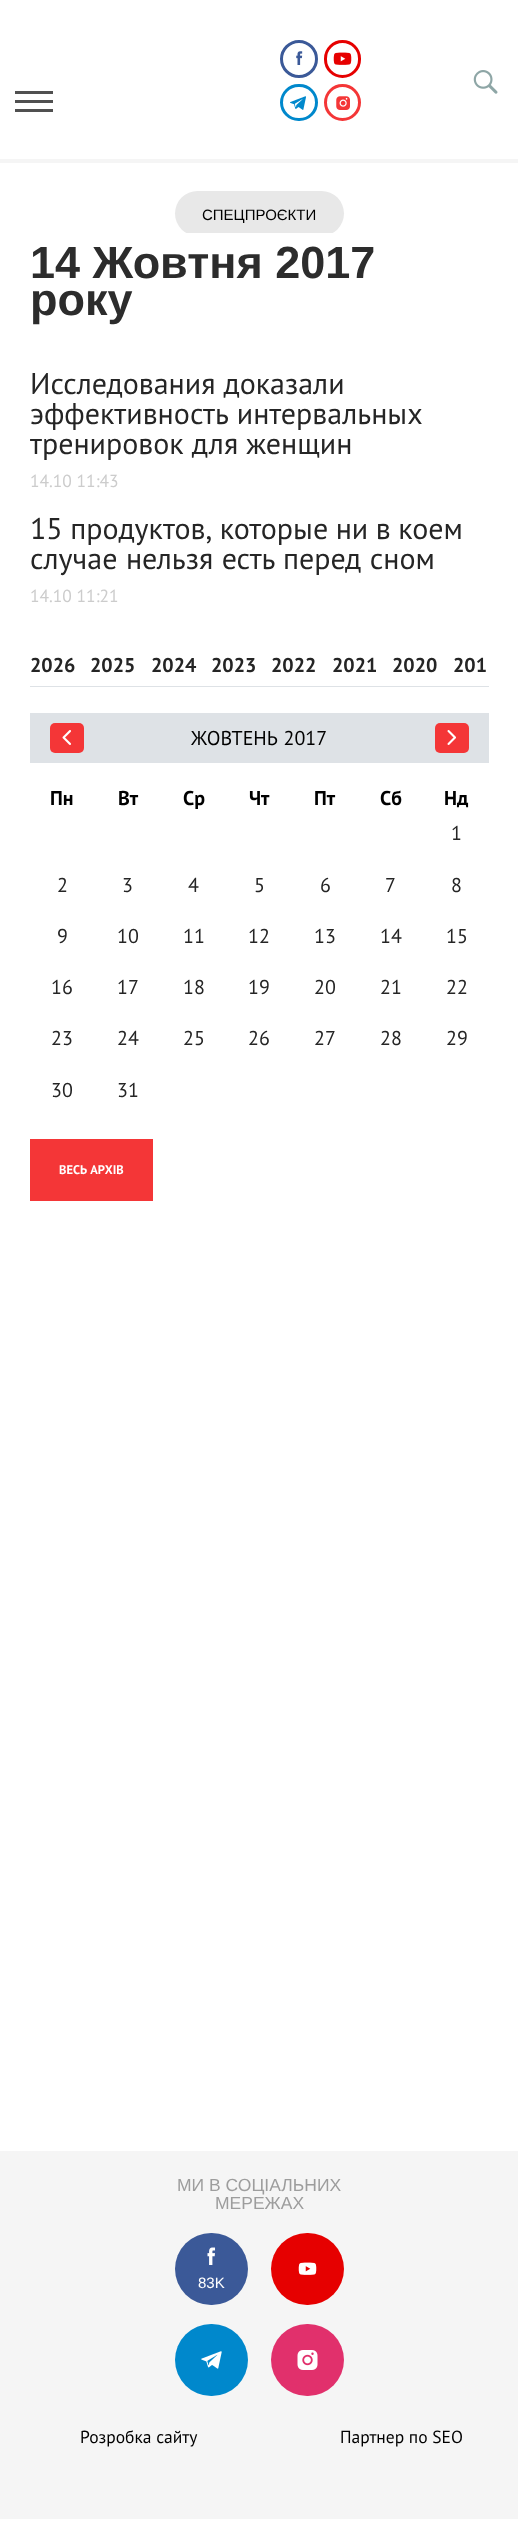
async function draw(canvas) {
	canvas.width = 518;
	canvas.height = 2530;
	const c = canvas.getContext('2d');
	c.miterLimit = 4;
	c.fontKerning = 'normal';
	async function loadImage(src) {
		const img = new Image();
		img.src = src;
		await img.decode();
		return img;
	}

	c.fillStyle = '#fff';
	c.fillRect(0, 0, 518, 2530);
	c.beginPath();
	c.arc(299, 59, 17.5, 0, 2 * Math.PI);
	c.strokeStyle = '#3b5998';
	c.lineWidth = 3;
	c.stroke();
	c.drawImage(await loadImage('img1.png'), 296, 51, 7, 14);
	c.beginPath();
	c.roundRect(325.5, 41.5, 34, 35, 17);
	c.strokeStyle = '#e60000';
	c.stroke();
	c.drawImage(await loadImage('img2.png'), 333, 52, 19, 13);
	c.beginPath();
	c.roundRect(281.5, 85.5, 35, 34, 17);
	c.strokeStyle = '#08c';
	c.stroke();
	c.drawImage(await loadImage('img3.png'), 290, 96, 16, 14);
	c.beginPath();
	c.arc(342.5, 102.5, 17, 0, 2 * Math.PI);
	c.strokeStyle = '#f43637';
	c.stroke();
	c.drawImage(await loadImage('img4.png'), 336, 96, 14, 14);
	c.drawImage(await loadImage('img5.png'), 473, 70, 25, 24);
	for (const [x, y, w, h, color] of [
		[0, 159, 518, 4, '#f5f5f5'],
		[15, 100, 38, 3, '#505050'],
		[15, 91, 38, 3, '#505050'],
		[15, 109, 38, 3, '#505050'],
	]) {
		c.fillStyle = color;
		c.fillRect(x, y, w, h);
	}
	c.fillStyle = '#e8e8e8';
	c.beginPath();
	c.roundRect(175, 191, 169, 45, 22.5);
	c.fill();
	c.font = '15px Liberation Sans';
	c.fillStyle = '#000';
	c.fillText('СПЕЦПРОЄКТИ', 202, 220);
	c.fillStyle = '#fff';
	c.fillRect(186, 233, 147, 3);
	c.font = 'bold 45px Liberation Sans';
	c.fillStyle = '#2c2c2c';
	c.fillText('14 Жовтня 2017', 30, 278);
	c.fillText('року', 30, 315);
	c.font = '30px PT Sans';
	c.fillStyle = '#252525';
	c.fillText('Исследования доказали', 30, 394);
	c.wordSpacing = '1px';
	c.fillText('эффективность интервальных', 30, 424);
	c.wordSpacing = '0px';
	c.fillText('тренировок для женщин', 30, 454);
	c.font = '17.5px PT Sans';
	c.fillStyle = '#ccc';
	c.fillText('14.10 11:43', 30, 487);
	c.wordSpacing = '-0.5px';
	c.font = '30px PT Sans';
	c.fillStyle = '#252525';
	c.fillText('15 продуктов, которые ни в коем', 30, 539);
	c.wordSpacing = '0.5px';
	c.fillText('случае нельзя есть перед сном', 30, 569);
	c.wordSpacing = '0px';
	c.font = '17.5px PT Sans';
	c.fillStyle = '#ccc';
	c.fillText('14.10 11:21', 30, 602);
	c.fillStyle = '#dee2e6';
	c.fillRect(30, 686, 459, 1);
	c.font = 'bold 20px PT Sans';
	c.fillStyle = '#252525';
	for (const [text, x, y] of [
		['2026', 30, 672],
		['2025', 90, 672],
		['2024', 151, 672],
		['2023', 211, 672],
		['2022', 271, 672],
		['2021', 332, 672],
		['2020', 392, 672],
		['201', 453, 672],
	]) {
		c.fillText(text, x, y);
	}
	c.fillStyle = '#dee2e6';
	c.fillRect(30, 713, 459, 50);
	c.fillStyle = '#f43637';
	c.beginPath();
	c.roundRect(50, 723, 34, 30, 5);
	c.fill();
	c.drawImage(await loadImage('img6.png'), 62, 730, 9, 15);
	c.wordSpacing = '1px';
	c.font = '20px PT Sans';
	c.fillStyle = '#000';
	c.fillText('ЖОВТЕНЬ 2017', 191, 745);
	c.fillStyle = '#f43637';
	c.beginPath();
	c.roundRect(435, 723, 34, 30, 5);
	c.fill();
	c.drawImage(await loadImage('img7.png'), 447, 730, 9, 15);
	c.wordSpacing = '0px';
	c.font = 'bold 20px PT Sans';
	c.fillStyle = '#000';
	for (const [text, x, y] of [
		['Пн', 50, 805],
		['Вт', 118, 805],
		['Ср', 183, 805],
		['Чт', 249, 805],
		['Пт', 314, 805],
		['Сб', 380, 805],
		['Нд', 444, 805],
	]) {
		c.fillText(text, x, y);
	}
	c.font = '20px PT Sans';
	c.fillStyle = '#252525';
	for (const [text, x, y] of [
		['1', 451, 840],
		['2', 57, 892],
		['3', 122, 892],
		['4', 188, 892],
		['5', 254, 892],
		['6', 320, 892],
		['7', 385, 892],
		['8', 451, 892],
		['9', 57, 943],
		['10', 117, 943],
		['11', 183, 943],
		['12', 248, 943],
		['13', 314, 943],
		['14', 380, 943],
		['15', 446, 943],
		['16', 51, 994],
		['17', 117, 994],
		['18', 183, 994],
		['19', 248, 994],
		['20', 314, 994],
		['21', 380, 994],
		['22', 446, 994],
		['23', 51, 1045],
		['24', 117, 1045],
		['25', 183, 1045],
		['26', 248, 1045],
		['27', 314, 1045],
		['28', 380, 1045],
		['29', 446, 1045],
		['30', 51, 1097],
		['31', 117, 1097],
	]) {
		c.fillText(text, x, y);
	}
	c.fillStyle = '#f43637';
	c.fillRect(30, 1139, 123, 62);
	c.wordSpacing = '1px';
	c.font = 'bold 12.5px PT Sans';
	c.fillStyle = '#fff';
	c.fillText('ВЕСЬ АРХІВ', 59, 1174);
	c.fillStyle = '#f5f5f5';
	c.fillRect(0, 2151, 518, 368);
	c.wordSpacing = '0px';
	c.font = '17.5px Liberation Sans';
	c.fillStyle = '#9d9d9d';
	c.fillText('МИ В СОЦІАЛЬНИХ', 177, 2191);
	c.fillText('МЕРЕЖАХ', 215, 2209);
	c.fillStyle = '#3b5998';
	c.beginPath();
	c.roundRect(175, 2233, 73, 72, 36);
	c.fill();
	c.drawImage(await loadImage('img8.png'), 207, 2247, 9, 18);
	c.font = '15px Liberation Sans';
	c.fillStyle = '#fff';
	c.fillText('83K', 198, 2288);
	c.fillStyle = '#e60000';
	c.beginPath();
	c.roundRect(271, 2233, 73, 72, 36);
	c.fill();
	c.drawImage(await loadImage('img9.png'), 298, 2262, 19, 13);
	c.fillStyle = '#08c';
	c.beginPath();
	c.roundRect(175, 2324, 73, 72, 36);
	c.fill();
	c.drawImage(await loadImage('img10.png'), 201, 2351, 21, 18);
	c.fillStyle = '#e1306c';
	c.beginPath();
	c.roundRect(271, 2324, 73, 72, 36);
	c.fill();
	c.drawImage(await loadImage('img11.png'), 297, 2350, 21, 20);
	c.font = '17.5px PT Sans';
	c.fillStyle = '#000';
	c.fillText('Розробка сайту', 80, 2443);
	c.fillText('Партнер по SEO', 340, 2443);
}

draw(document.querySelector('canvas'));
